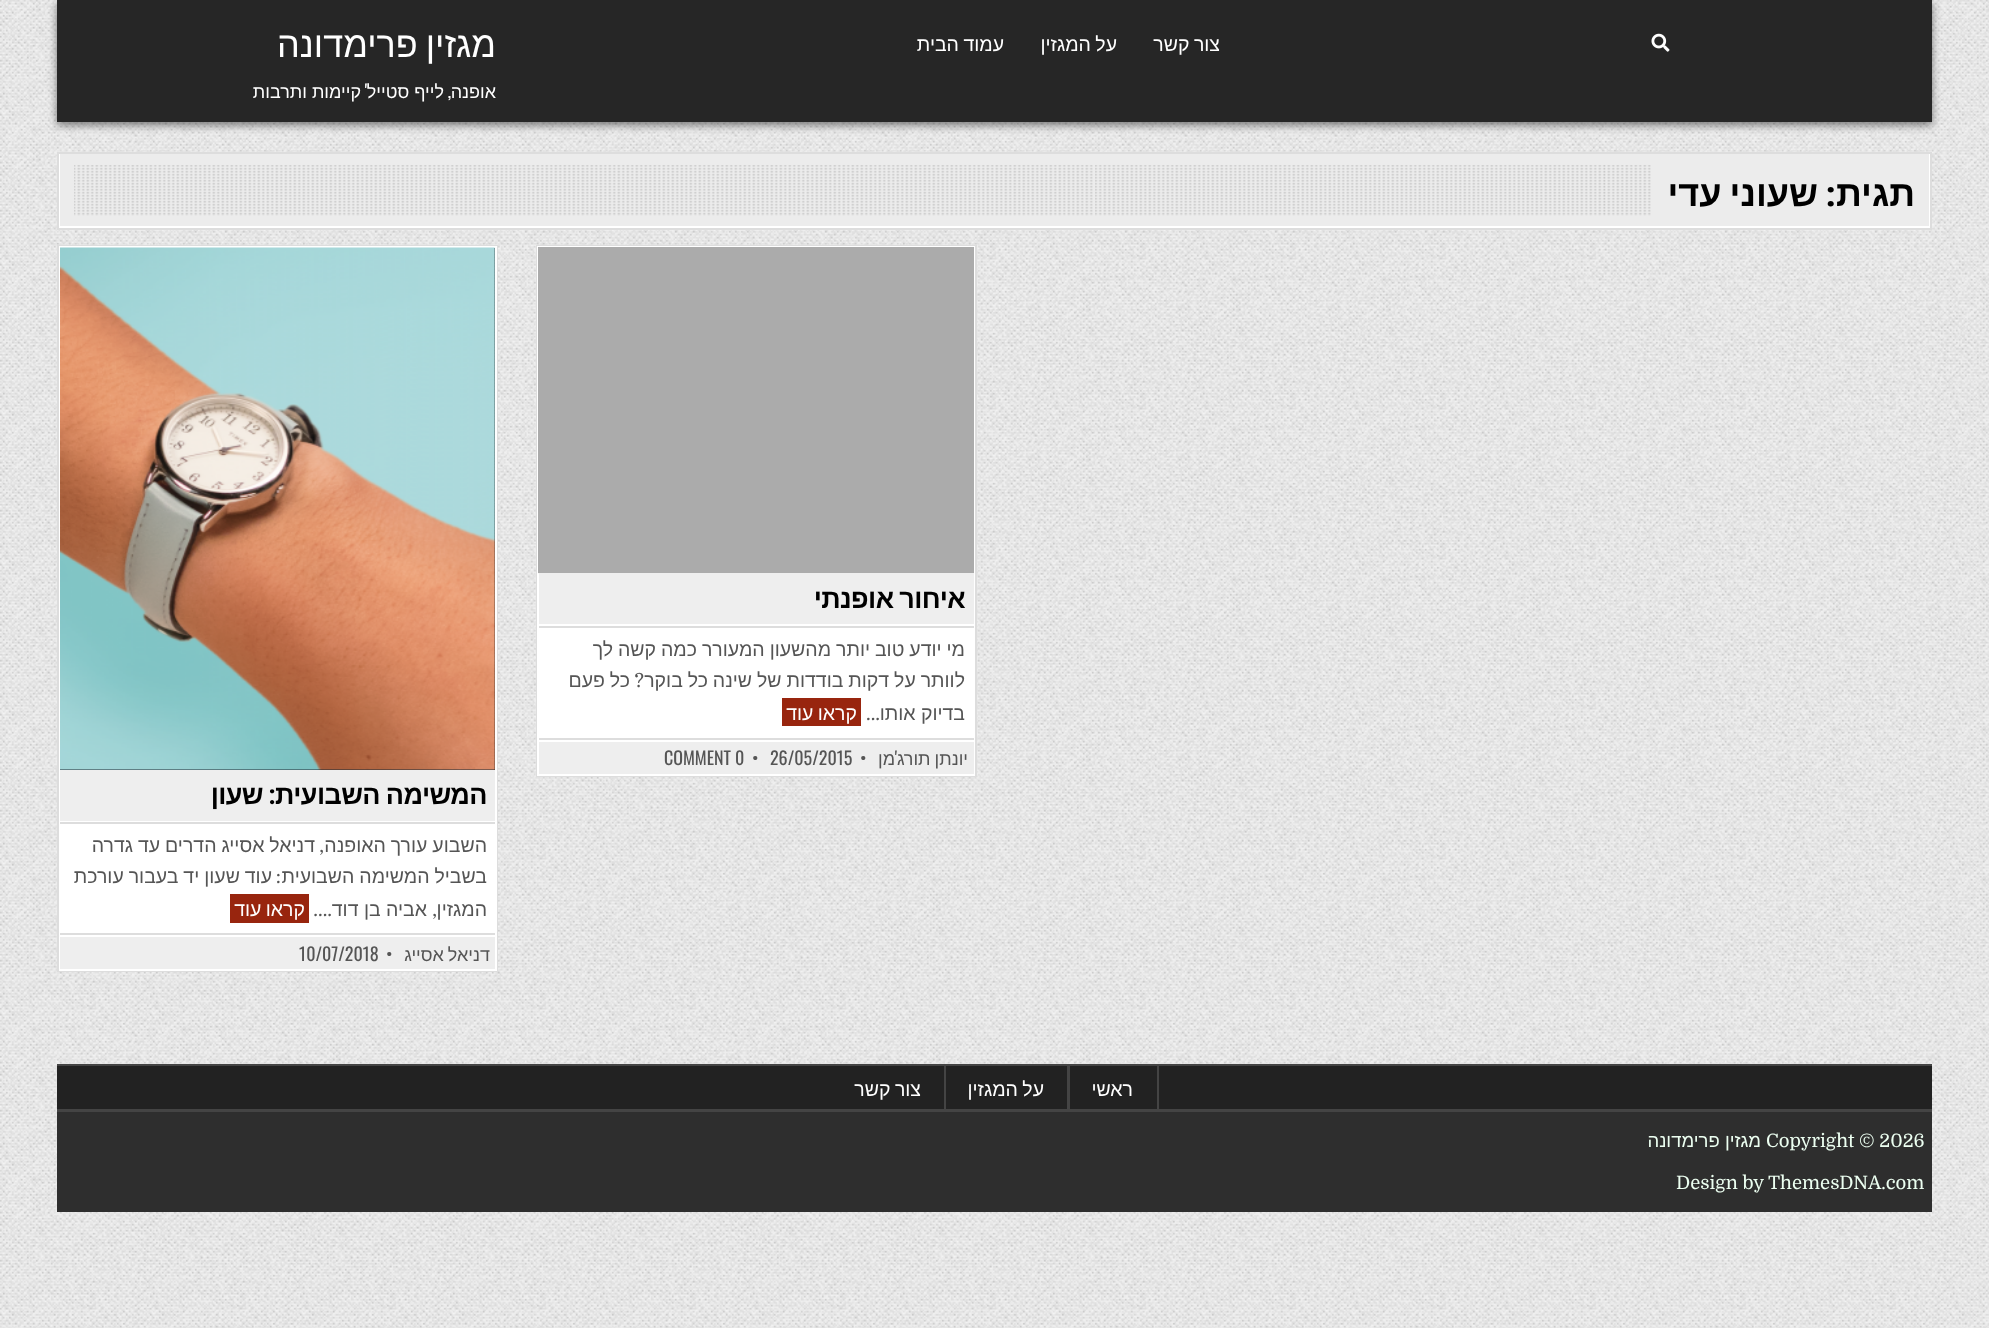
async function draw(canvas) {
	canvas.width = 1989;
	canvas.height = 1328;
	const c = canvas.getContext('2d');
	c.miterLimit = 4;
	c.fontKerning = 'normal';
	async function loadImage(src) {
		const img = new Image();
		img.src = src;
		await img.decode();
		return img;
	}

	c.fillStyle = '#fff';
	c.fillRect(0, 0, 1989, 1328);
	c.drawImage(await loadImage('img1.png'), 0, 0, 1989, 1328);
	c.fillStyle = '#00000080';
	c.filter = 'blur(4px)';
	c.beginPath();
	c.rect(57, 3, 1875, 122);
	c.fill();
	c.filter = 'none';
	c.fillStyle = '#262626';
	c.fillRect(57, 0, 1875, 122);
	c.drawImage(await loadImage('img2.png'), 1651, 33, 19, 19);
	c.wordSpacing = '-1px';
	c.direction = 'rtl';
	c.font = '19.5px Liberation Sans';
	c.fillStyle = '#fff';
	for (const [text, x, y] of [
		['צור קשר', 1220, 51],
		['על המגזין', 1117, 51],
		['עמוד הבית', 1004, 51],
	]) {
		c.fillText(text, x, y);
	}
	c.wordSpacing = '-2px';
	c.font = '36px Liberation Sans';
	c.fillText('מגזין פרימדונה', 496, 57);
	c.wordSpacing = '0px';
	c.font = '18px Liberation Sans';
	c.fillText('אופנה', 496, 98);
	c.font = '18px Oswald';
	c.fillText(',', 451, 98);
	c.font = '18px Liberation Sans';
	c.fillText('לייף סטייל', 444, 98);
	c.font = '18px Oswald';
	c.fillText('\'', 367, 98);
	c.font = '18px Liberation Sans';
	c.fillText('קיימות ותרבות', 361, 98);
	c.fillStyle = '#ececec';
	c.fillRect(60, 154, 1869, 72);
	c.save();
	c.beginPath();
	c.rect(59, 153, 1872, 75);
	c.clip();
	c.fillStyle = '#fff';
	c.beginPath();
	c.moveTo(-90, 4);
	c.lineTo(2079, 4);
	c.lineTo(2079, 376);
	c.lineTo(-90, 376);
	c.closePath();
	c.moveTo(57, 152);
	c.lineTo(1929, 152);
	c.lineTo(1929, 226);
	c.lineTo(57, 226);
	c.closePath();
	c.fill('evenodd');
	c.beginPath();
	c.moveTo(-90, 4);
	c.lineTo(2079, 4);
	c.lineTo(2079, 376);
	c.lineTo(-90, 376);
	c.closePath();
	c.moveTo(60, 154);
	c.lineTo(1932, 154);
	c.lineTo(1932, 230);
	c.lineTo(60, 230);
	c.closePath();
	c.fill('evenodd');
	c.restore();
	c.strokeStyle = '#ddd';
	c.lineWidth = 2;
	c.strokeRect(58, 153, 1873, 76);
	c.drawImage(await loadImage('img3.png'), 74, 165, 1577, 51);
	c.font = 'bold 36px Liberation Sans';
	c.fillStyle = '#000';
	c.fillText('תגית', 1915, 206);
	c.font = 'bold 36px Playfair Display';
	c.fillText(':', 1836, 206);
	c.wordSpacing = '-2px';
	c.font = 'bold 36px Liberation Sans';
	c.fillText('שעוני עדי', 1818, 206);
	c.fillStyle = '#fff';
	c.fillRect(539, 624, 434, 114);
	c.strokeRect(537, 246, 439, 530);
	c.strokeStyle = '#fff';
	c.strokeRect(538, 247, 436, 528);
	c.drawImage(await loadImage('img4.png'), 538, 573, 1, 1);
	c.fillStyle = '#ababab';
	c.fillRect(538, 247, 436, 326);
	c.fillStyle = '#eee';
	c.fillRect(539, 573, 435, 51);
	c.letterSpacing = '-0.6px';
	c.wordSpacing = '-1px';
	c.font = 'bold 27px Liberation Sans';
	c.fillStyle = '#000';
	c.fillText('איחור אופנתי', 965, 608);
	c.fillStyle = '#ddd';
	c.fillRect(539, 626, 435, 2);
	c.letterSpacing = '0px';
	c.wordSpacing = '-0.5px';
	c.font = '19.5px Liberation Sans';
	c.fillStyle = '#555';
	c.fillText('מי יודע טוב יותר מהשעון המעורר כמה קשה לך', 965, 656);
	c.fillText('לוותר על דקות בודדות של שינה כל בוקר', 965, 687);
	c.wordSpacing = '0px';
	c.font = '19.5px Domine';
	c.fillText('?', 644, 687);
	c.wordSpacing = '-0.5px';
	c.font = '19.5px Liberation Sans';
	c.fillText('כל פעם', 630, 687);
	c.wordSpacing = '0px';
	c.fillText('בדיוק אותו', 965, 720);
	c.font = '19.5px Domine';
	c.fillText('…', 880, 720);
	c.fillStyle = '#98250e';
	c.fillRect(782, 698, 79, 28);
	c.wordSpacing = '-1px';
	c.font = '19.5px Liberation Sans';
	c.fillStyle = '#fff';
	c.fillText('קראו עוד', 857, 720);
	for (const [x, y, w, h, color] of [
		[539, 742, 435, 32, '#eee'],
		[539, 738, 435, 2, '#ddd'],
		[539, 740, 435, 2, '#fff'],
	]) {
		c.fillStyle = color;
		c.fillRect(x, y, w, h);
	}
	c.wordSpacing = '0px';
	c.font = '18px Oswald';
	c.fillStyle = '#555';
	c.fillText('\'', 897, 765);
	c.wordSpacing = '-1px';
	c.font = '18px Liberation Sans';
	c.fillText('יונתן תורג', 968, 765);
	c.wordSpacing = '0px';
	c.fillText('מן', 895, 765);
	c.direction = 'ltr';
	c.font = '18px Oswald';
	for (const [text, x, y] of [
		['•', 860, 765],
		['26/05/2015', 770, 765],
		['•', 752, 765],
		['COMMENT 0', 664, 765],
	]) {
		c.fillText(text, x, y);
	}
	c.fillStyle = '#fff';
	c.fillRect(61, 821, 434, 112);
	c.strokeStyle = '#ddd';
	c.strokeRect(58, 246, 439, 725);
	c.strokeStyle = '#fff';
	c.strokeRect(60, 247, 436, 723);
	c.fillStyle = '#1e2b34';
	c.fillRect(60, 248, 435, 522);
	c.drawImage(await loadImage('img5.png'), 494, 248, 1, 521);
	c.drawImage(await loadImage('img6.png'), 60, 247, 435, 523);
	c.fillStyle = '#eee';
	c.fillRect(60, 770, 435, 51);
	c.letterSpacing = '-0.6px';
	c.wordSpacing = '-1px';
	c.direction = 'rtl';
	c.font = 'bold 27px Liberation Sans';
	c.fillStyle = '#000';
	c.fillText('המשימה השבועית', 487, 804);
	c.wordSpacing = '0px';
	c.font = 'bold 27px Roboto Condensed';
	c.fillText(':', 275, 804);
	c.font = 'bold 27px Liberation Sans';
	c.fillText('שעון', 263, 804);
	c.fillStyle = '#ddd';
	c.fillRect(60, 822, 435, 2);
	c.letterSpacing = '0px';
	c.wordSpacing = '-0.5px';
	c.font = '19.5px Liberation Sans';
	c.fillStyle = '#555';
	c.fillText('השבוע עורך האופנה', 487, 852);
	c.wordSpacing = '0px';
	c.font = '19.5px Domine';
	c.fillText(',', 324, 852);
	c.wordSpacing = '-0.5px';
	c.font = '19.5px Liberation Sans';
	c.fillText('דניאל אסייג הדרים עד גדרה', 315, 852);
	c.fillText('בשביל המשימה השבועית', 487, 883);
	c.wordSpacing = '0px';
	c.font = '19.5px Domine';
	c.fillText(':', 281, 883);
	c.wordSpacing = '-0.5px';
	c.font = '19.5px Liberation Sans';
	c.fillText('עוד שעון יד בעבור עורכת', 272, 883);
	c.wordSpacing = '0px';
	c.fillText('המגזין', 487, 916);
	c.font = '19.5px Domine';
	c.fillText(',', 437, 916);
	c.font = '19.5px Liberation Sans';
	c.fillText('אביה בן דוד', 427, 916);
	c.font = '19.5px Domine';
	c.fillText('….', 332, 916);
	c.fillStyle = '#98250e';
	c.fillRect(230, 894, 79, 29);
	c.wordSpacing = '-1px';
	c.font = '19.5px Liberation Sans';
	c.fillStyle = '#fff';
	c.fillText('קראו עוד', 305, 916);
	for (const [x, y, w, h, color] of [
		[60, 937, 435, 32, '#eee'],
		[60, 933, 435, 2, '#ddd'],
		[60, 935, 435, 2, '#fff'],
	]) {
		c.fillStyle = color;
		c.fillRect(x, y, w, h);
	}
	c.font = '18px Liberation Sans';
	c.fillStyle = '#555';
	c.fillText('דניאל אסייג', 490, 961);
	c.wordSpacing = '0px';
	c.direction = 'ltr';
	c.font = '18px Oswald';
	c.fillText('•', 386, 961);
	c.fillText('10/07/2018', 299, 961);
	for (const [x, y, w, h, color] of [
		[57, 1066, 1875, 43, '#222'],
		[57, 1064, 1875, 2, '#444'],
		[57, 1109, 1875, 3, '#444'],
		[1157, 1065, 2, 44, '#444'],
		[1067, 1065, 3, 44, '#444'],
	]) {
		c.fillStyle = color;
		c.fillRect(x, y, w, h);
	}
	c.direction = 'rtl';
	c.font = '19.5px Liberation Sans';
	c.fillStyle = '#fff';
	c.fillText('ראשי', 1133, 1096);
	c.wordSpacing = '-1px';
	c.fillText('על המגזין', 1044, 1096);
	c.fillStyle = '#444';
	c.fillRect(944, 1065, 2, 44);
	c.fillStyle = '#fff';
	c.fillText('צור קשר', 921, 1096);
	c.fillStyle = '#2e2e2e';
	c.fillRect(57, 1112, 1875, 100);
	c.wordSpacing = '0px';
	c.direction = 'ltr';
	c.font = '18.5px Domine';
	c.fillStyle = '#ecfff1';
	c.fillText('Copyright © 2026', 1766, 1147);
	c.direction = 'rtl';
	c.font = '18.5px Liberation Sans';
	c.fillText('מגזין פרימדונה', 1761, 1147);
	c.direction = 'ltr';
	c.font = '18.5px Domine';
	c.fillText('Design by ThemesDNA.com', 1676, 1189);
}

draw(document.querySelector('canvas'));
